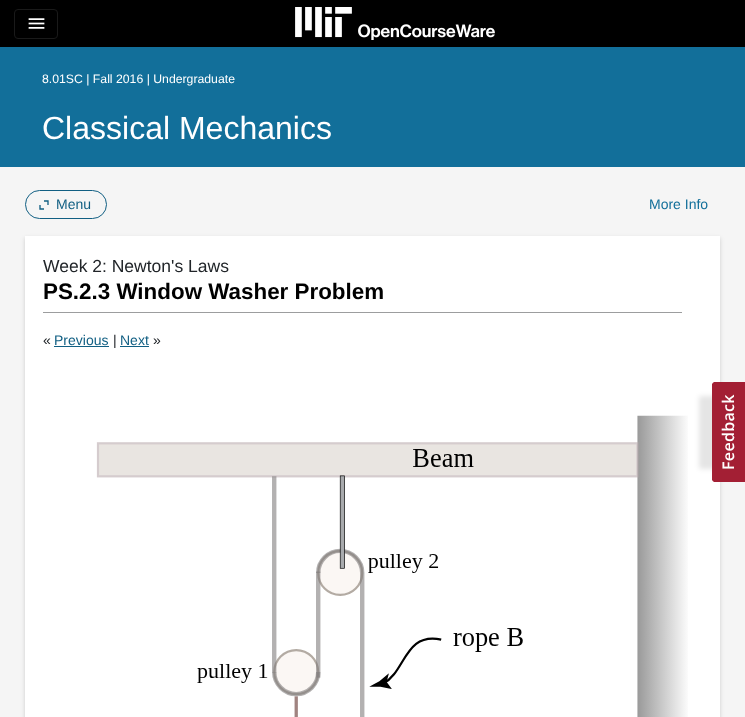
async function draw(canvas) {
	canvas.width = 745;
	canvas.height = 717;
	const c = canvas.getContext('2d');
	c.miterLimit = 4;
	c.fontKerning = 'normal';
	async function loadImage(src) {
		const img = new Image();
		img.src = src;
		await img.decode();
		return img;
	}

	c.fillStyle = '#f5f5f5';
	c.fillRect(0, 0, 745, 717);
	c.fillStyle = '#000';
	c.fillRect(0, 0, 745, 47);
	c.beginPath();
	c.roundRect(14.5, 9.5, 43, 29, 3.5);
	c.strokeStyle = '#1a1a1a';
	c.stroke();
	c.drawImage(await loadImage('img1.png'), 28, 18, 17, 11);
	c.drawImage(await loadImage('img2.png'), 295, 7, 200, 33);
	c.fillStyle = '#126f9a';
	c.fillRect(0, 47, 745, 120);
	c.font = '12.25px Liberation Sans';
	c.fillStyle = '#fff';
	c.fillText('8.01SC | Fall 2016 | Undergraduate', 42, 83);
	c.font = '32px Liberation Sans';
	c.fillText('Classical Mechanics', 42, 139);
	c.beginPath();
	c.roundRect(25.5, 190.5, 81, 28, 14);
	c.strokeStyle = '#115f83';
	c.stroke();
	c.drawImage(await loadImage('img3.png'), 39, 200, 10, 10);
	c.font = '14px Liberation Sans';
	c.fillStyle = '#115f83';
	c.fillText('Menu', 56, 209);
	c.fillStyle = '#126f9a';
	c.fillText('More Info', 649, 209);
	c.fillStyle = '#00000029';
	c.filter = 'blur(2px)';
	c.beginPath();
	c.rect(25, 238, 695, 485);
	c.fill();
	c.filter = 'none';
	c.fillStyle = '#fff';
	c.fillRect(25, 236, 695, 481);
	c.fillStyle = '#9c9d9e';
	c.fillRect(43, 312, 639, 1);
	c.font = '17.5px Liberation Sans';
	c.fillStyle = '#212529';
	c.fillText('Week 2: Newton\'s Laws', 43, 272);
	c.font = 'bold 22.4px Liberation Sans';
	c.fillStyle = '#000';
	c.fillText('PS.2.3 Window Washer Problem', 43, 299);
	c.font = '14px Liberation Sans';
	c.fillStyle = '#212529';
	c.fillText('«', 43, 345);
	c.fillStyle = '#115f83';
	c.fillText('Previous', 54, 345);
	c.fillRect(54, 346, 55, 1);
	c.fillStyle = '#212529';
	c.fillText('|', 113, 345);
	c.fillStyle = '#115f83';
	c.fillText('Next', 120, 345);
	c.fillRect(120, 346, 29, 1);
	c.fillStyle = '#212529';
	c.fillText('»', 153, 345);
	c.drawImage(await loadImage('img4.png'), 96, 415, 592, 302);
	c.fillStyle = '#0000001a';
	c.filter = 'blur(2.5px)';
	c.beginPath();
	c.roundRect(699, 396, 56, 73, 2);
	c.fill();
	c.filter = 'none';
	c.drawImage(await loadImage('img5.png'), 712, 382, 33, 100);
}

draw(document.querySelector('canvas'));
